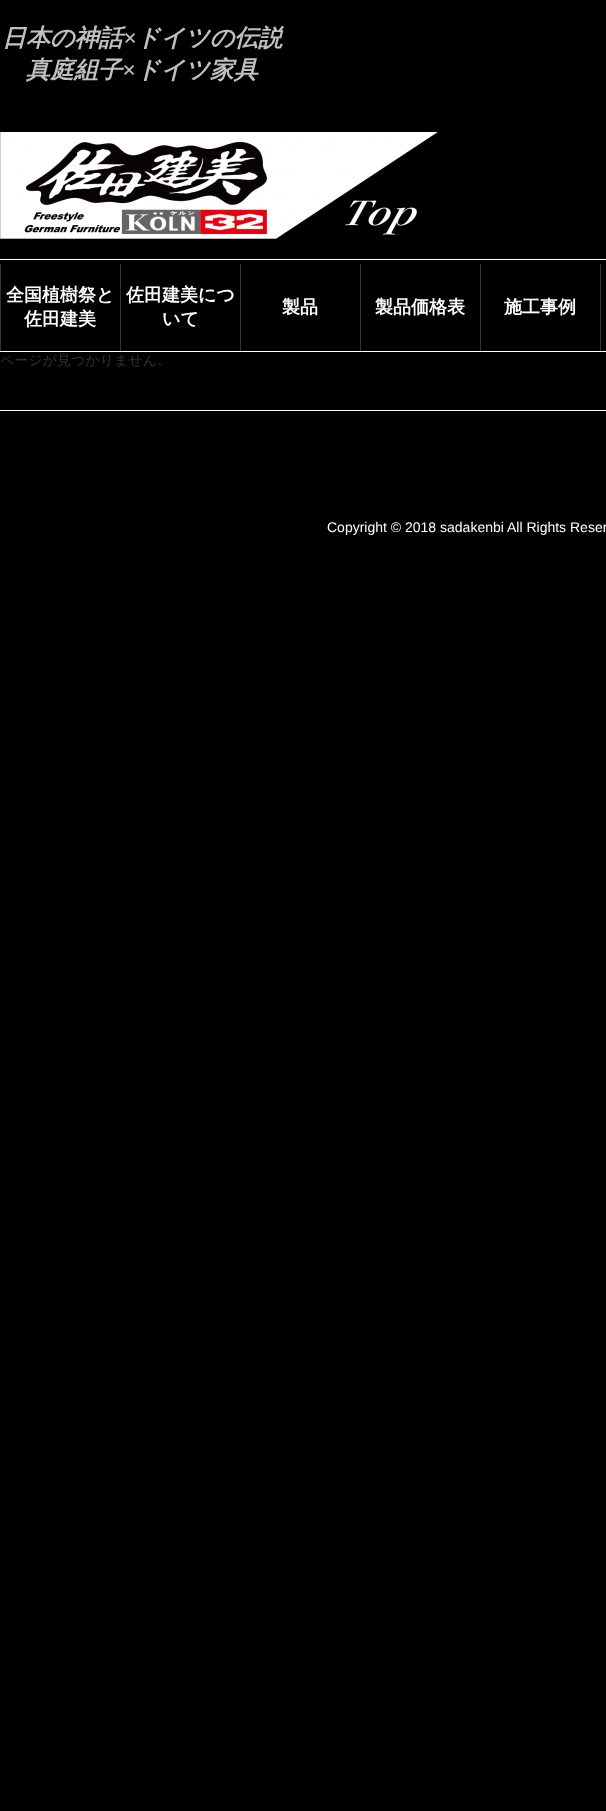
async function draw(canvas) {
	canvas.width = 606;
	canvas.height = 1811;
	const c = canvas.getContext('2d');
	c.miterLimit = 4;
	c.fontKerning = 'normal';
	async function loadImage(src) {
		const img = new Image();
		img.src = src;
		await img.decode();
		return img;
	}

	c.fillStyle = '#000';
	c.fillRect(0, 0, 606, 1811);
	c.font = 'italic bold 24px WenQuanYi Zen Hei';
	c.fillStyle = '#c0c0c0';
	c.fillText('日本の神話', 2, 46);
	c.font = 'italic bold 24px Liberation Serif';
	c.fillText('×', 123, 46);
	c.font = 'italic bold 24px WenQuanYi Zen Hei';
	c.fillText('ドイツの伝説', 136, 46);
	c.fillText('真庭組子', 26, 78);
	c.font = 'italic bold 24px Liberation Serif';
	c.fillText('×', 122, 78);
	c.font = 'italic bold 24px WenQuanYi Zen Hei';
	c.fillText('ドイツ家具', 136, 78);
	c.drawImage(await loadImage('img1.png'), 0, 132, 438, 107);
	for (const [x, y, w, h, color] of [
		[0, 259, 606, 1, '#fff'],
		[0, 351, 606, 1, '#fff'],
		[0, 264, 1, 87, '#333'],
	]) {
		c.fillStyle = color;
		c.fillRect(x, y, w, h);
	}
	c.font = 'bold 18px WenQuanYi Zen Hei';
	c.fillStyle = '#fff';
	c.fillText('全国植樹祭と', 6, 301);
	c.fillText('佐田建美', 24, 325);
	c.fillStyle = '#333';
	c.fillRect(120, 264, 1, 87);
	c.fillStyle = '#fff';
	c.fillText('佐田建美につ', 126, 301);
	c.fillText('いて', 162, 325);
	c.fillStyle = '#333';
	c.fillRect(240, 264, 1, 87);
	c.fillStyle = '#fff';
	c.fillText('製品', 282, 313);
	c.fillStyle = '#333';
	c.fillRect(360, 264, 1, 87);
	c.fillStyle = '#fff';
	c.fillText('製品価格表', 375, 313);
	c.fillStyle = '#333';
	c.fillRect(480, 264, 1, 87);
	c.fillStyle = '#fff';
	c.fillText('施工事例', 504, 313);
	c.fillStyle = '#333';
	c.fillRect(600, 264, 1, 87);
	c.font = '500 14px WenQuanYi Zen Hei';
	c.fillText('ページが見つかりません。', 0, 365);
	c.fillStyle = '#fff';
	c.fillRect(0, 410, 606, 1);
	c.font = '14px Liberation Sans';
	c.fillText('Copyright © 2018 sadakenbi All Rights Reser', 327, 532);
}

draw(document.querySelector('canvas'));
